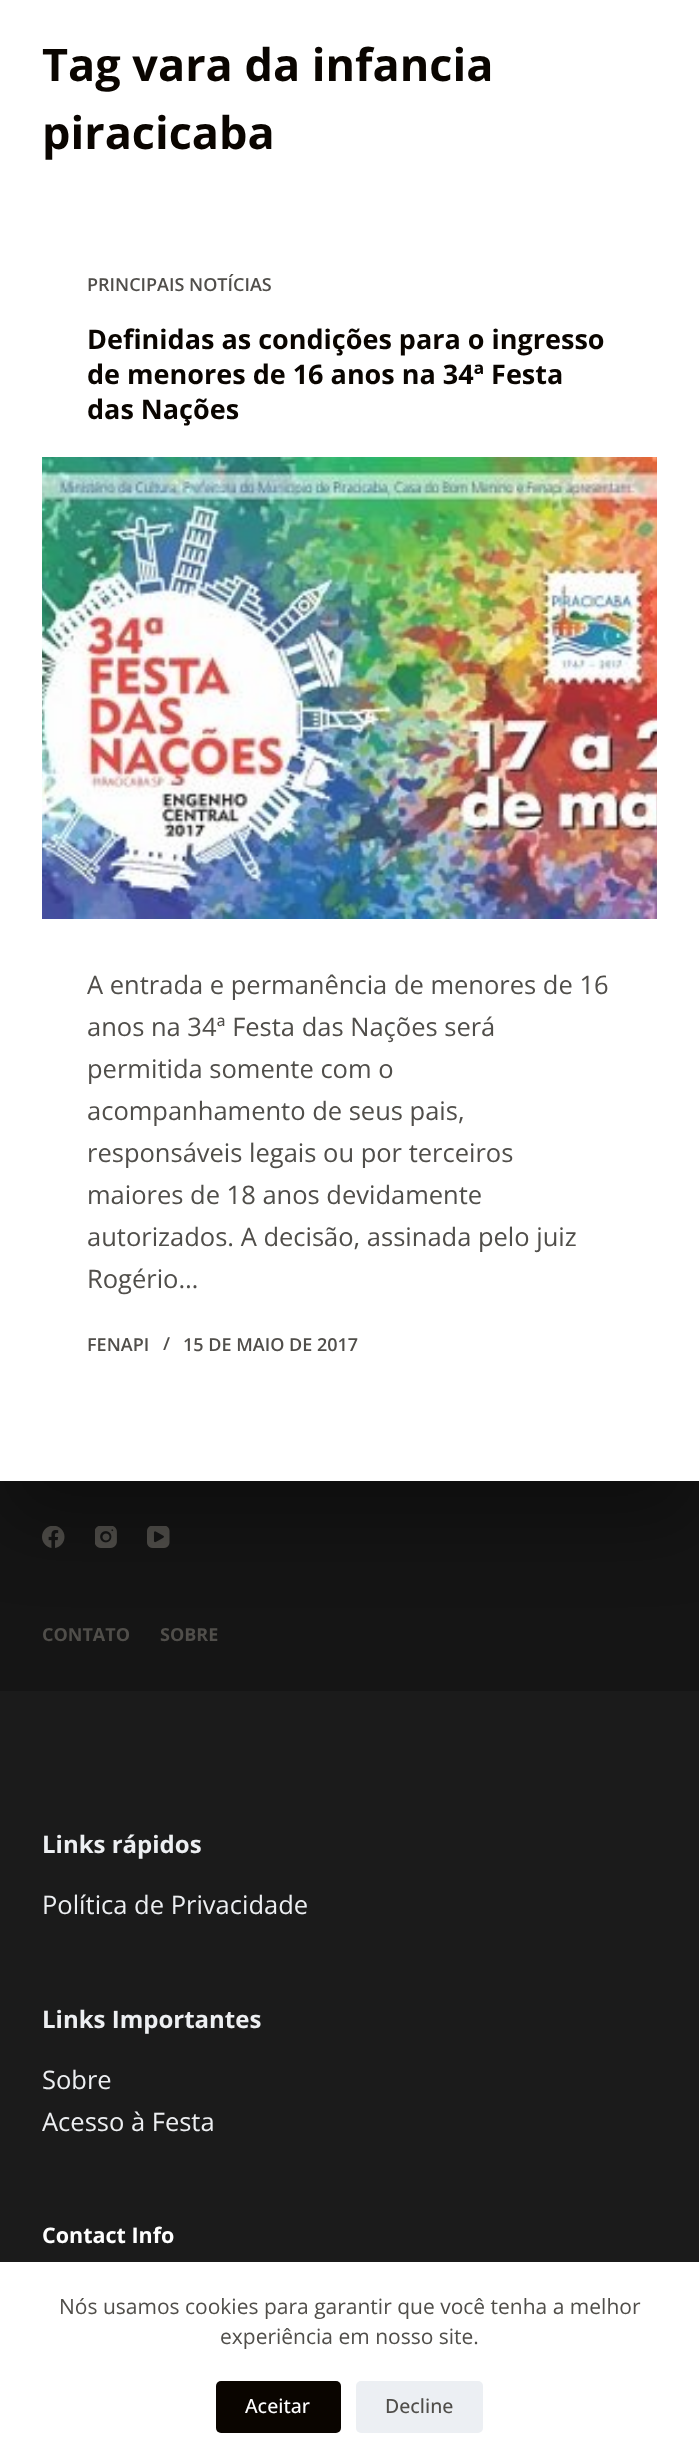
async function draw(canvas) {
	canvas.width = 699;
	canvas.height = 2462;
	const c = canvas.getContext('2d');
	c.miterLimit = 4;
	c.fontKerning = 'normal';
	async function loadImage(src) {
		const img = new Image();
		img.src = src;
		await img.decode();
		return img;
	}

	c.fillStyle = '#1b1b1b';
	c.fillRect(0, 0, 699, 2462);
	c.fillStyle = '#151515';
	c.fillRect(0, 1481, 699, 210);
	c.drawImage(await loadImage('img2.png'), 42, 1526, 23, 22);
	c.drawImage(await loadImage('img3.png'), 95, 1526, 22, 22);
	c.drawImage(await loadImage('img4.png'), 147, 1526, 23, 22);
	c.fillStyle = '#0000004d';
	c.filter = 'blur(37.5px)';
	c.beginPath();
	c.rect(0, 0, 699, 1526);
	c.fill();
	c.filter = 'none';
	c.fillStyle = '#fff';
	c.fillRect(0, 0, 699, 1481);
	c.font = 'bold 45px Open Sans';
	c.fillStyle = '#0a0500';
	c.fillText('Tag vara da infancia', 42, 81);
	c.fillText('piracicaba', 42, 149);
	c.font = '600 18px Open Sans';
	c.fillStyle = '#504e4a';
	c.fillText('PRINCIPAIS NOTÍCIAS', 87, 291);
	c.font = 'bold 27px Open Sans';
	c.fillStyle = '#0a0500';
	for (const [text, x, y] of [
		['Definidas as condições para o ingresso', 87, 349],
		['de menores de 16 anos na 34ª Festa', 87, 384],
		['das Nações', 87, 419],
	]) {
		c.fillText(text, x, y);
	}
	c.drawImage(await loadImage('img1.png'), 42, 457, 615, 462);
	c.font = '25.5px Open Sans';
	c.fillStyle = '#504e4a';
	for (const [text, x, y] of [
		['A entrada e permanência de menores de 16', 87, 994],
		['anos na 34ª Festa das Nações será', 87, 1036],
		['permitida somente com o', 87, 1078],
		['acompanhamento de seus pais,', 87, 1120],
		['responsáveis legais ou por terceiros', 87, 1162],
		['maiores de 18 anos devidamente', 87, 1204],
		['autorizados. A decisão, assinada pelo juiz', 87, 1246],
		['Rogério…', 87, 1288],
	]) {
		c.fillText(text, x, y);
	}
	c.font = '600 18px Open Sans';
	for (const [text, x, y] of [
		['FENAPI', 87, 1351],
		['/', 163, 1350],
		['15 DE MAIO DE 2017', 183, 1351],
	]) {
		c.fillText(text, x, y);
	}
	c.font = 'bold 18px Open Sans';
	c.fillText('CONTATO', 42, 1641);
	c.fillText('SOBRE', 160, 1641);
	c.font = 'bold 24px Open Sans';
	c.fillStyle = '#edeff2';
	c.fillText('Links rápidos', 42, 1853);
	c.font = '25.5px Open Sans';
	c.fillText('Política de Privacidade', 42, 1914);
	c.font = 'bold 24px Open Sans';
	c.fillText('Links Importantes', 42, 2028);
	c.font = '25.5px Open Sans';
	c.fillText('Sobre', 42, 2089);
	c.fillText('Acesso à Festa', 42, 2131);
	c.font = 'bold 21.5px Open Sans';
	c.fillStyle = '#fff';
	c.fillText('Contact Info', 42, 2243);
	c.fillRect(0, 2262, 699, 200);
	c.font = '21px Open Sans';
	c.fillStyle = '#504e4a';
	c.fillText('Nós usamos cookies para garantir que você tenha a melhor', 59, 2314);
	c.fillText('experiência em nosso site.', 220, 2344);
	c.fillStyle = '#0a0500';
	c.beginPath();
	c.roundRect(216, 2381, 125, 52, 5);
	c.fill();
	c.font = '500 19.5px Open Sans';
	c.fillStyle = '#fff';
	c.fillText('Aceitar', 245, 2413);
	c.fillStyle = '#eceff3';
	c.beginPath();
	c.roundRect(356, 2381, 127, 52, 5);
	c.fill();
	c.fillStyle = '#504e4a';
	c.fillText('Decline', 385, 2413);
}

draw(document.querySelector('canvas'));
